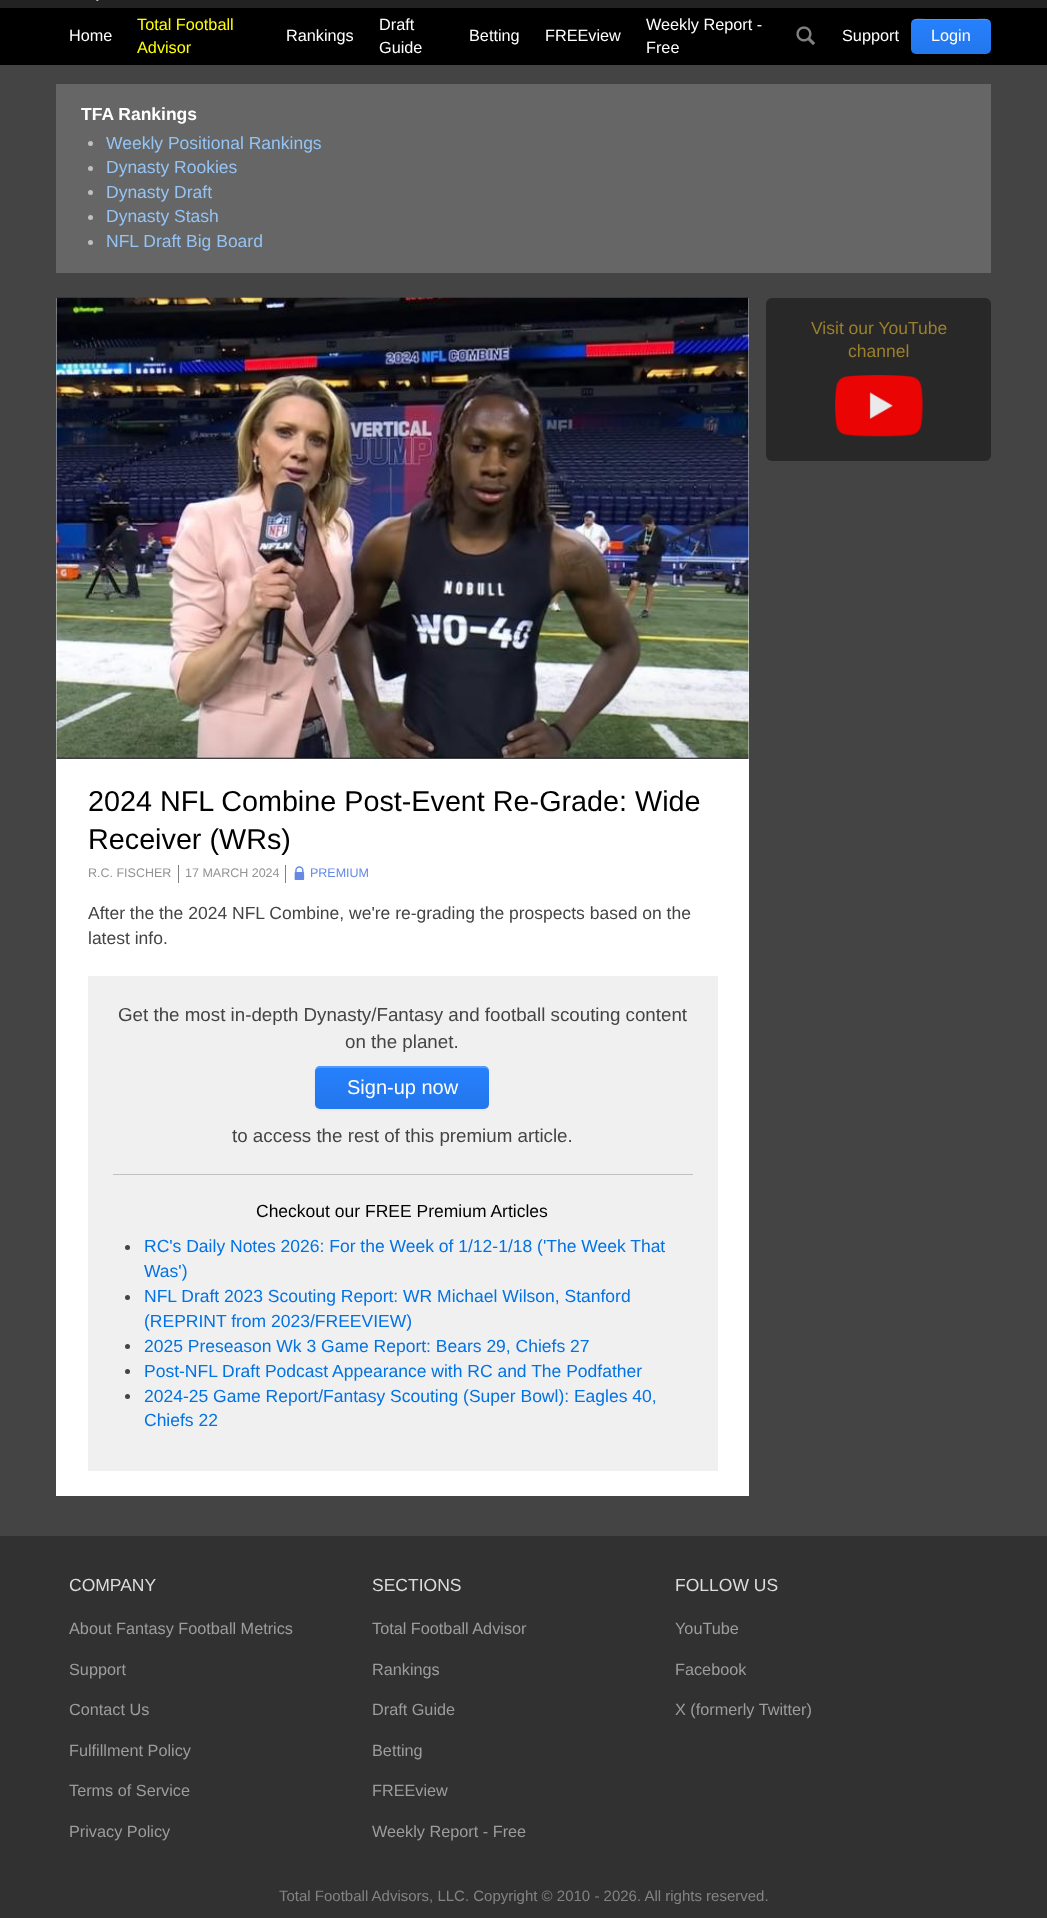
async function draw(canvas) {
	canvas.width = 1047;
	canvas.height = 1918;
	const c = canvas.getContext('2d');
	c.miterLimit = 4;
	c.fontKerning = 'normal';
	async function loadImage(src) {
		const img = new Image();
		img.src = src;
		await img.decode();
		return img;
	}
	let gradient;

	c.fillStyle = '#444';
	c.fillRect(0, 0, 1047, 1918);
	c.fillStyle = '#000';
	c.fillRect(0, 8, 1047, 57);
	c.fillStyle = '#222';
	c.fillRect(0, 0, 1047, 8);
	c.drawImage(await loadImage('img1.png'), 95, 0, 5, 2);
	c.font = '16.25px Liberation Sans';
	c.fillStyle = '#fff';
	c.fillText('Home', 69, 41);
	c.fillStyle = '#ff0';
	c.fillText('Total Football', 137, 30);
	c.fillText('Advisor', 137, 53);
	c.fillStyle = '#fff';
	for (const [text, x, y] of [
		['Rankings', 286, 41],
		['Draft', 379, 30],
		['Guide', 379, 53],
		['Betting', 469, 41],
		['FREEview', 545, 41],
		['Weekly Report -', 646, 30],
		['Free', 646, 53],
	]) {
		c.fillText(text, x, y);
	}
	c.drawImage(await loadImage('img2.png'), 796, 26, 19, 19);
	c.fillText('Support', 842, 41);
	gradient = c.createLinearGradient(951, 19, 951, 54);
	gradient.addColorStop(0, '#2680fd');
	gradient.addColorStop(1, '#2377ec');
	c.fillStyle = gradient;
	c.beginPath();
	c.roundRect(911, 19, 80, 35, 5);
	c.fill();
	c.fillStyle = '#ffffff33';
	c.beginPath();
	c.moveTo(916, 20);
	c.lineTo(986, 20);
	c.bezierCurveTo(989, 20, 991, 22, 991, 25);
	c.bezierCurveTo(991, 16, 980, 19, 974, 19);
	c.lineTo(928, 19);
	c.bezierCurveTo(922, 19, 911, 16, 911, 25);
	c.bezierCurveTo(911, 22, 913, 20, 916, 20);
	c.closePath();
	c.fill();
	c.fillStyle = '#fff';
	c.fillText('Login', 931, 41);
	c.fillStyle = '#666';
	c.fillRect(56, 84, 935, 189);
	c.font = 'bold 17.5px Liberation Sans';
	c.fillStyle = '#fff';
	c.fillText('TFA Rankings', 81, 120);
	c.fillStyle = '#c0c0c0';
	c.beginPath();
	c.arc(90.5, 143.5, 2.5, 0, 2 * Math.PI);
	c.fill();
	c.font = '17.5px Liberation Sans';
	c.fillStyle = '#95c4f4';
	c.fillText('Weekly Positional Rankings', 106, 149);
	c.fillStyle = '#c0c0c0';
	c.beginPath();
	c.arc(90.5, 168.5, 2.5, 0, 2 * Math.PI);
	c.fill();
	c.fillStyle = '#95c4f4';
	c.fillText('Dynasty Rookies', 106, 173);
	c.fillStyle = '#c0c0c0';
	c.beginPath();
	c.arc(90.5, 192.5, 2.5, 0, 2 * Math.PI);
	c.fill();
	c.fillStyle = '#95c4f4';
	c.fillText('Dynasty Draft', 106, 198);
	c.fillStyle = '#c0c0c0';
	c.beginPath();
	c.arc(90.5, 217.5, 2.5, 0, 2 * Math.PI);
	c.fill();
	c.fillStyle = '#95c4f4';
	c.fillText('Dynasty Stash', 106, 222);
	c.fillStyle = '#c0c0c0';
	c.beginPath();
	c.arc(90.5, 242.5, 2.5, 0, 2 * Math.PI);
	c.fill();
	c.fillStyle = '#95c4f4';
	c.fillText('NFL Draft Big Board', 106, 247);
	c.fillStyle = '#282828';
	c.beginPath();
	c.roundRect(766, 298, 225, 163, 6);
	c.fill();
	c.fillStyle = '#9b7f2c';
	c.fillText('Visit our YouTube', 811, 334);
	c.fillText('channel', 848, 357);
	c.drawImage(await loadImage('img3.png'), 835, 375, 88, 62);
	c.fillStyle = '#fff';
	c.fillRect(56, 298, 693, 1198);
	c.drawImage(await loadImage('img4.png'), 56, 297, 693, 462);
	c.font = '28.75px Liberation Sans';
	c.fillStyle = '#000';
	c.fillText('2024 NFL Combine Post-Event Re-Grade: Wide', 88, 811);
	c.fillText('Receiver (WRs)', 88, 849);
	c.fillStyle = '#808080';
	c.fillRect(178, 865, 1, 18);
	c.font = '12.5px Liberation Sans';
	c.fillStyle = '#939393';
	c.fillText('R.C. FISCHER', 88, 877);
	c.fillStyle = '#808080';
	c.fillRect(285, 865, 1, 18);
	c.fillStyle = '#939393';
	c.fillText('17 MARCH 2024', 185, 877);
	c.drawImage(await loadImage('img5.png'), 294, 866, 11, 14);
	c.fillStyle = '#6589e4';
	c.fillText('PREMIUM', 310, 877);
	c.font = '17.5px Liberation Sans';
	c.fillStyle = '#444';
	c.fillText('After the the 2024 NFL Combine, we\'re re-grading the prospects based on the', 88, 919);
	c.fillText('latest info.', 88, 944);
	c.fillStyle = '#f0f0f0';
	c.fillRect(88, 976, 630, 495);
	c.font = '18.75px Liberation Sans';
	c.fillStyle = '#444';
	c.fillText('Get the most in-depth Dynasty/Fantasy and football scouting content', 118, 1021);
	c.fillText('on the planet.', 345, 1048);
	c.fillStyle = '#0000000d';
	c.filter = 'blur(1px)';
	c.beginPath();
	c.roundRect(315, 1068, 174, 42, 5);
	c.fill();
	c.filter = 'none';
	gradient = c.createLinearGradient(402, 1066, 402, 1109);
	gradient.addColorStop(0, '#2680fd');
	gradient.addColorStop(1, '#2377ec');
	c.fillStyle = gradient;
	c.beginPath();
	c.roundRect(315, 1066, 174, 43, 5);
	c.fill();
	c.fillStyle = '#ffffff33';
	c.beginPath();
	c.moveTo(320, 1068);
	c.lineTo(485, 1068);
	c.lineTo(488, 1069);
	c.lineTo(489, 1072);
	c.bezierCurveTo(489, 1069, 488, 1067, 485, 1066);
	c.lineTo(320, 1066);
	c.bezierCurveTo(317, 1066, 315, 1069, 315, 1072);
	c.bezierCurveTo(315, 1070, 317, 1068, 320, 1068);
	c.closePath();
	c.fill();
	c.font = '20px Liberation Sans';
	c.fillStyle = '#fff';
	c.fillText('Sign-up now', 347, 1094);
	c.font = '18.75px Liberation Sans';
	c.fillStyle = '#444';
	c.fillText('to access the rest of this premium article.', 232, 1142);
	c.fillStyle = '#c0c0c0';
	c.fillRect(113, 1174, 580, 1);
	c.font = '17.5px Liberation Sans';
	c.fillStyle = '#000';
	c.fillText('Checkout our FREE Premium Articles', 256, 1217);
	c.fillStyle = '#444';
	c.beginPath();
	c.arc(127.5, 1247.5, 2.5, 0, 2 * Math.PI);
	c.fill();
	c.fillStyle = '#0272e4';
	c.fillText('RC\'s Daily Notes 2026: For the Week of 1/12-1/18 (\'The Week That', 144, 1252);
	c.fillText('Was\')', 144, 1277);
	c.fillStyle = '#444';
	c.beginPath();
	c.arc(127.5, 1297.5, 2.5, 0, 2 * Math.PI);
	c.fill();
	c.fillStyle = '#0272e4';
	c.fillText('NFL Draft 2023 Scouting Report: WR Michael Wilson, Stanford', 144, 1302);
	c.fillText('(REPRINT from 2023/FREEVIEW)', 144, 1327);
	c.fillStyle = '#444';
	c.beginPath();
	c.arc(127.5, 1346.5, 2.5, 0, 2 * Math.PI);
	c.fill();
	c.fillStyle = '#0272e4';
	c.fillText('2025 Preseason Wk 3 Game Report: Bears 29, Chiefs 27', 144, 1352);
	c.fillStyle = '#444';
	c.beginPath();
	c.arc(127.5, 1371.5, 2.5, 0, 2 * Math.PI);
	c.fill();
	c.fillStyle = '#0272e4';
	c.fillText('Post-NFL Draft Podcast Appearance with RC and The Podfather', 144, 1377);
	c.fillStyle = '#444';
	c.beginPath();
	c.arc(127.5, 1396.5, 2.5, 0, 2 * Math.PI);
	c.fill();
	c.fillStyle = '#0272e4';
	c.fillText('2024-25 Game Report/Fantasy Scouting (Super Bowl): Eagles 40,', 144, 1402);
	c.fillText('Chiefs 22', 144, 1426);
	c.fillStyle = '#313131';
	c.fillRect(0, 1536, 1047, 382);
	c.fillStyle = '#ddd';
	c.fillText('COMPANY', 69, 1591);
	c.font = '16.25px Liberation Sans';
	c.fillStyle = '#9d9d9d';
	for (const [text, x, y] of [
		['About Fantasy Football Metrics', 69, 1634],
		['Support', 69, 1675],
		['Contact Us', 69, 1715],
		['Fulfillment Policy', 69, 1756],
		['Terms of Service', 69, 1796],
		['Privacy Policy', 69, 1837],
	]) {
		c.fillText(text, x, y);
	}
	c.font = '17.5px Liberation Sans';
	c.fillStyle = '#ddd';
	c.fillText('SECTIONS', 372, 1591);
	c.font = '16.25px Liberation Sans';
	c.fillStyle = '#9d9d9d';
	for (const [text, x, y] of [
		['Total Football Advisor', 372, 1634],
		['Rankings', 372, 1675],
		['Draft Guide', 372, 1715],
		['Betting', 372, 1756],
		['FREEview', 372, 1796],
		['Weekly Report - Free', 372, 1837],
	]) {
		c.fillText(text, x, y);
	}
	c.font = '17.5px Liberation Sans';
	c.fillStyle = '#ddd';
	c.fillText('FOLLOW US', 675, 1591);
	c.font = '16.25px Liberation Sans';
	c.fillStyle = '#9d9d9d';
	for (const [text, x, y] of [
		['YouTube', 675, 1634],
		['Facebook', 675, 1675],
		['X (formerly Twitter)', 675, 1715],
	]) {
		c.fillText(text, x, y);
	}
	c.font = '15px Liberation Sans';
	c.fillStyle = '#838383';
	c.fillText('Total Football Advisors, LLC. Copyright © 2010 - 2026. All rights reserved.', 279, 1901);
}

draw(document.querySelector('canvas'));
